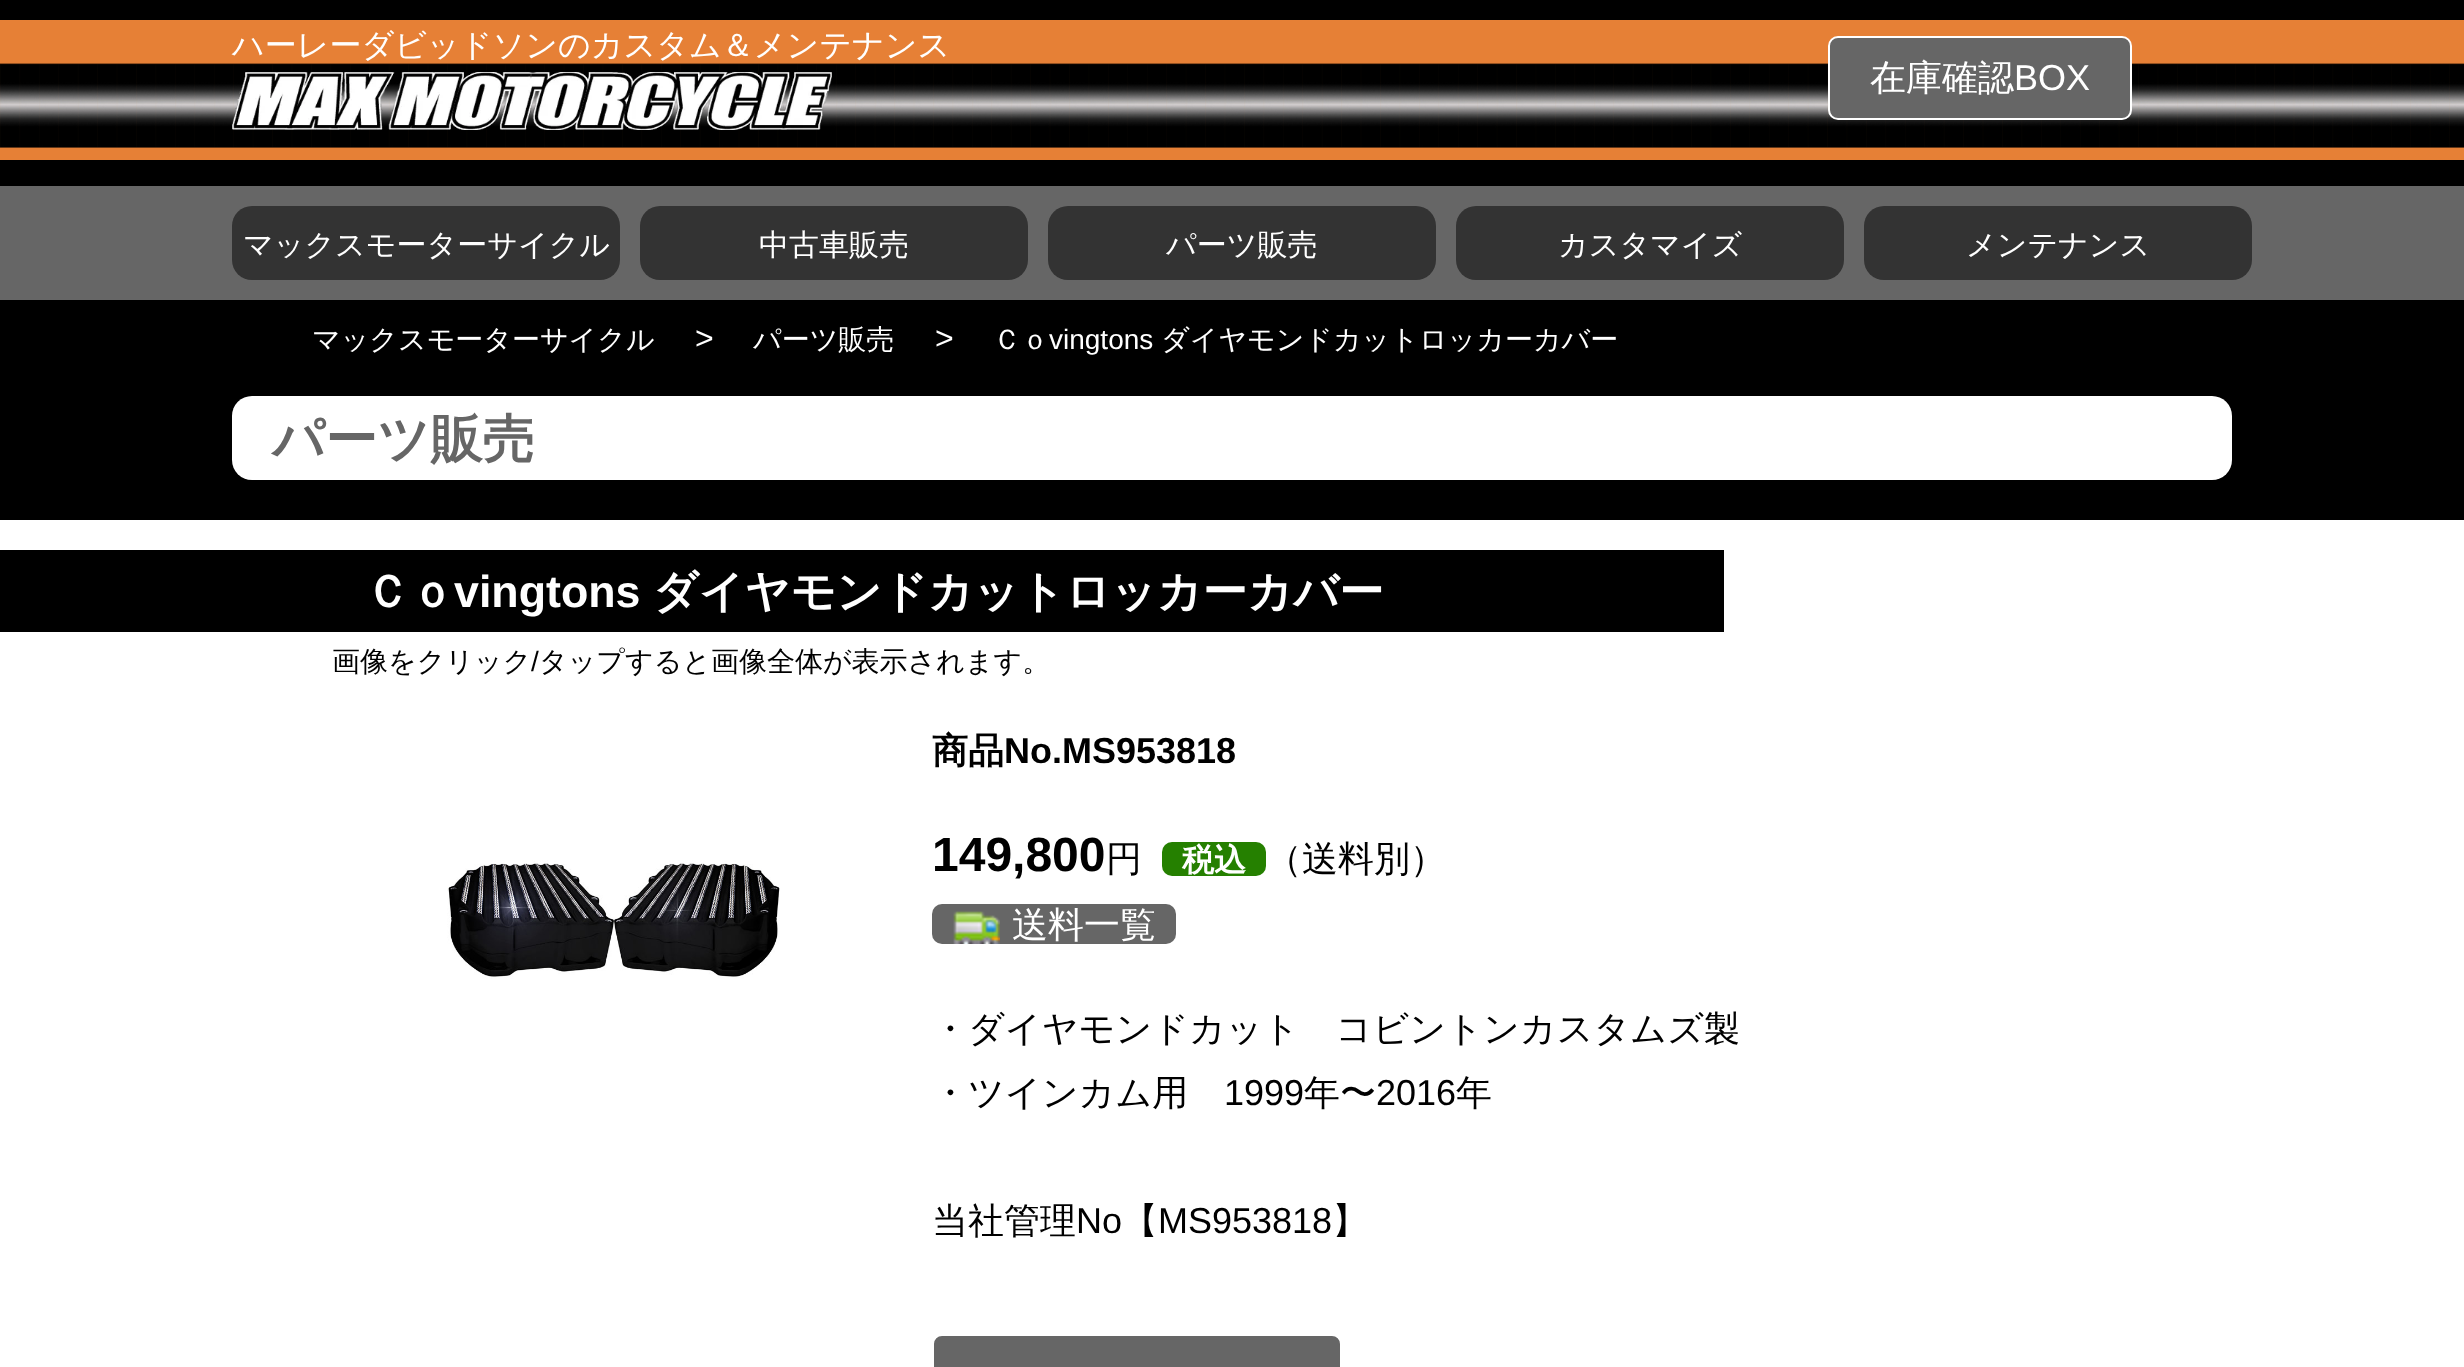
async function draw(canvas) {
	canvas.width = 2464;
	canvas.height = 1367;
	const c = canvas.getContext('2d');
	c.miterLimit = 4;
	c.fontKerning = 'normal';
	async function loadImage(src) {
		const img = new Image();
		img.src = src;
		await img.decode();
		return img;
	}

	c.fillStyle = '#000';
	c.fillRect(0, 0, 2464, 1367);
	c.drawImage(await loadImage('img1.png'), 0, 20, 2464, 140);
	c.font = '500 32px WenQuanYi Zen Hei';
	c.fillStyle = '#fff';
	c.fillText('ハーレーダビッドソンのカスタム＆メンテナンス', 232, 56);
	c.drawImage(await loadImage('img2.png'), 232, 72, 600, 58);
	c.fillStyle = '#666';
	c.beginPath();
	c.roundRect(1829, 37, 302, 82, 9);
	c.fill();
	c.strokeStyle = '#fff';
	c.lineWidth = 2;
	c.stroke();
	c.font = '500 36px WenQuanYi Zen Hei';
	c.fillStyle = '#fff';
	c.fillText('在庫確認', 1870, 90);
	c.font = '36px Liberation Sans';
	c.fillText('BOX', 2014, 90);
	c.fillStyle = '#666';
	c.fillRect(0, 186, 2464, 114);
	c.fillStyle = '#333';
	c.beginPath();
	c.roundRect(232, 206, 388, 74, 20);
	c.fill();
	c.font = '500 30px WenQuanYi Zen Hei';
	c.fillStyle = '#fff';
	c.fillText('マックスモーターサイクル', 243, 255);
	c.fillStyle = '#333';
	c.beginPath();
	c.roundRect(640, 206, 388, 74, 20);
	c.fill();
	c.fillStyle = '#fff';
	c.fillText('中古車販売', 759, 255);
	c.fillStyle = '#333';
	c.beginPath();
	c.roundRect(1048, 206, 388, 74, 20);
	c.fill();
	c.fillStyle = '#fff';
	c.fillText('パーツ販売', 1166, 255);
	c.fillStyle = '#333';
	c.beginPath();
	c.roundRect(1456, 206, 388, 74, 20);
	c.fill();
	c.fillStyle = '#fff';
	c.fillText('カスタマイズ', 1558, 255);
	c.fillStyle = '#333';
	c.beginPath();
	c.roundRect(1864, 206, 388, 74, 20);
	c.fill();
	c.fillStyle = '#fff';
	c.fillText('メンテナンス', 1966, 255);
	c.font = '500 28px WenQuanYi Zen Hei';
	c.fillText('マックスモーターサイクル', 312, 349);
	c.font = '32px Liberation Sans';
	c.fillText('>', 695, 349);
	c.font = '500 28px WenQuanYi Zen Hei';
	c.fillText('パーツ販売', 753, 349);
	c.font = '32px Liberation Sans';
	c.fillText('>', 935, 349);
	c.font = '500 28px WenQuanYi Zen Hei';
	c.fillText('Ｃｏ', 993, 349);
	c.font = '28px Liberation Sans';
	c.fillText('vingtons', 1049, 349);
	c.font = '500 28px WenQuanYi Zen Hei';
	c.fillText('ダイヤモンドカットロッカーカバー', 1161, 349);
	c.beginPath();
	c.roundRect(232, 396, 2000, 84, 20);
	c.fill();
	c.font = 'bold 52px WenQuanYi Zen Hei';
	c.fillStyle = '#666';
	c.fillText('パーツ販売', 272, 457);
	c.fillStyle = '#fff';
	c.fillRect(0, 520, 2464, 847);
	c.fillStyle = '#000';
	c.fillRect(0, 550, 1724, 82);
	c.font = 'bold 44.75px WenQuanYi Zen Hei';
	c.fillStyle = '#fff';
	c.fillText('Ｃｏ', 365, 607);
	c.font = 'bold 44.75px Liberation Sans';
	c.fillText('vingtons', 454, 607);
	c.font = 'bold 44.75px WenQuanYi Zen Hei';
	c.fillText('ダイヤモンドカットロッカーカバー', 653, 607);
	c.font = '500 28px WenQuanYi Zen Hei';
	c.fillStyle = '#000';
	c.fillText('画像をクリック', 332, 671);
	c.font = '28px Liberation Sans';
	c.fillText('/', 531, 671);
	c.font = '500 28px WenQuanYi Zen Hei';
	c.fillText('タップすると画像全体が表示されます。', 539, 671);
	c.drawImage(await loadImage('img3.png'), 447, 860, 333, 119);
	c.font = 'bold 36px WenQuanYi Zen Hei';
	c.fillText('商品', 932, 763);
	c.font = 'bold 36px Liberation Sans';
	c.fillText('No.MS953818', 1004, 763);
	c.font = 'bold 48px Liberation Sans';
	c.fillText('149,800', 932, 871);
	c.font = '500 36px WenQuanYi Zen Hei';
	c.fillText('円', 1106, 871);
	c.fillStyle = '#258000';
	c.beginPath();
	c.roundRect(1162, 842, 104, 34, 10);
	c.fill();
	c.font = 'bold 32px WenQuanYi Zen Hei';
	c.fillStyle = '#fff';
	c.fillText('税込', 1182, 871);
	c.font = '500 36px WenQuanYi Zen Hei';
	c.fillStyle = '#000';
	c.fillText('（送料別）', 1266, 871);
	c.fillStyle = '#666';
	c.beginPath();
	c.roundRect(932, 904, 244, 40, 10);
	c.fill();
	c.drawImage(await loadImage('img4.png'), 953, 911, 47, 33);
	c.fillStyle = '#fff';
	c.fillText('送料一覧', 1012, 937);
	c.fillStyle = '#000';
	c.fillText('・ダイヤモンドカット　コビントンカスタムズ製', 932, 1041);
	c.fillText('・ツインカム用', 932, 1105);
	c.font = '36px Liberation Sans';
	c.fillText('1999', 1224, 1105);
	c.font = '500 36px WenQuanYi Zen Hei';
	c.fillText('年〜', 1304, 1105);
	c.font = '36px Liberation Sans';
	c.fillText('2016', 1376, 1105);
	c.font = '500 36px WenQuanYi Zen Hei';
	c.fillText('年', 1456, 1105);
	c.fillText('当社管理', 932, 1233);
	c.font = '36px Liberation Sans';
	c.fillText('No', 1076, 1233);
	c.font = '500 36px WenQuanYi Zen Hei';
	c.fillText('【', 1122, 1233);
	c.font = '36px Liberation Sans';
	c.fillText('MS953818', 1158, 1233);
	c.font = '500 36px WenQuanYi Zen Hei';
	c.fillText('】', 1332, 1233);
	c.fillStyle = '#666';
	c.beginPath();
	c.roundRect(933, 1335, 408, 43, 9);
	c.fill();
	c.stroke();
}

draw(document.querySelector('canvas'));
